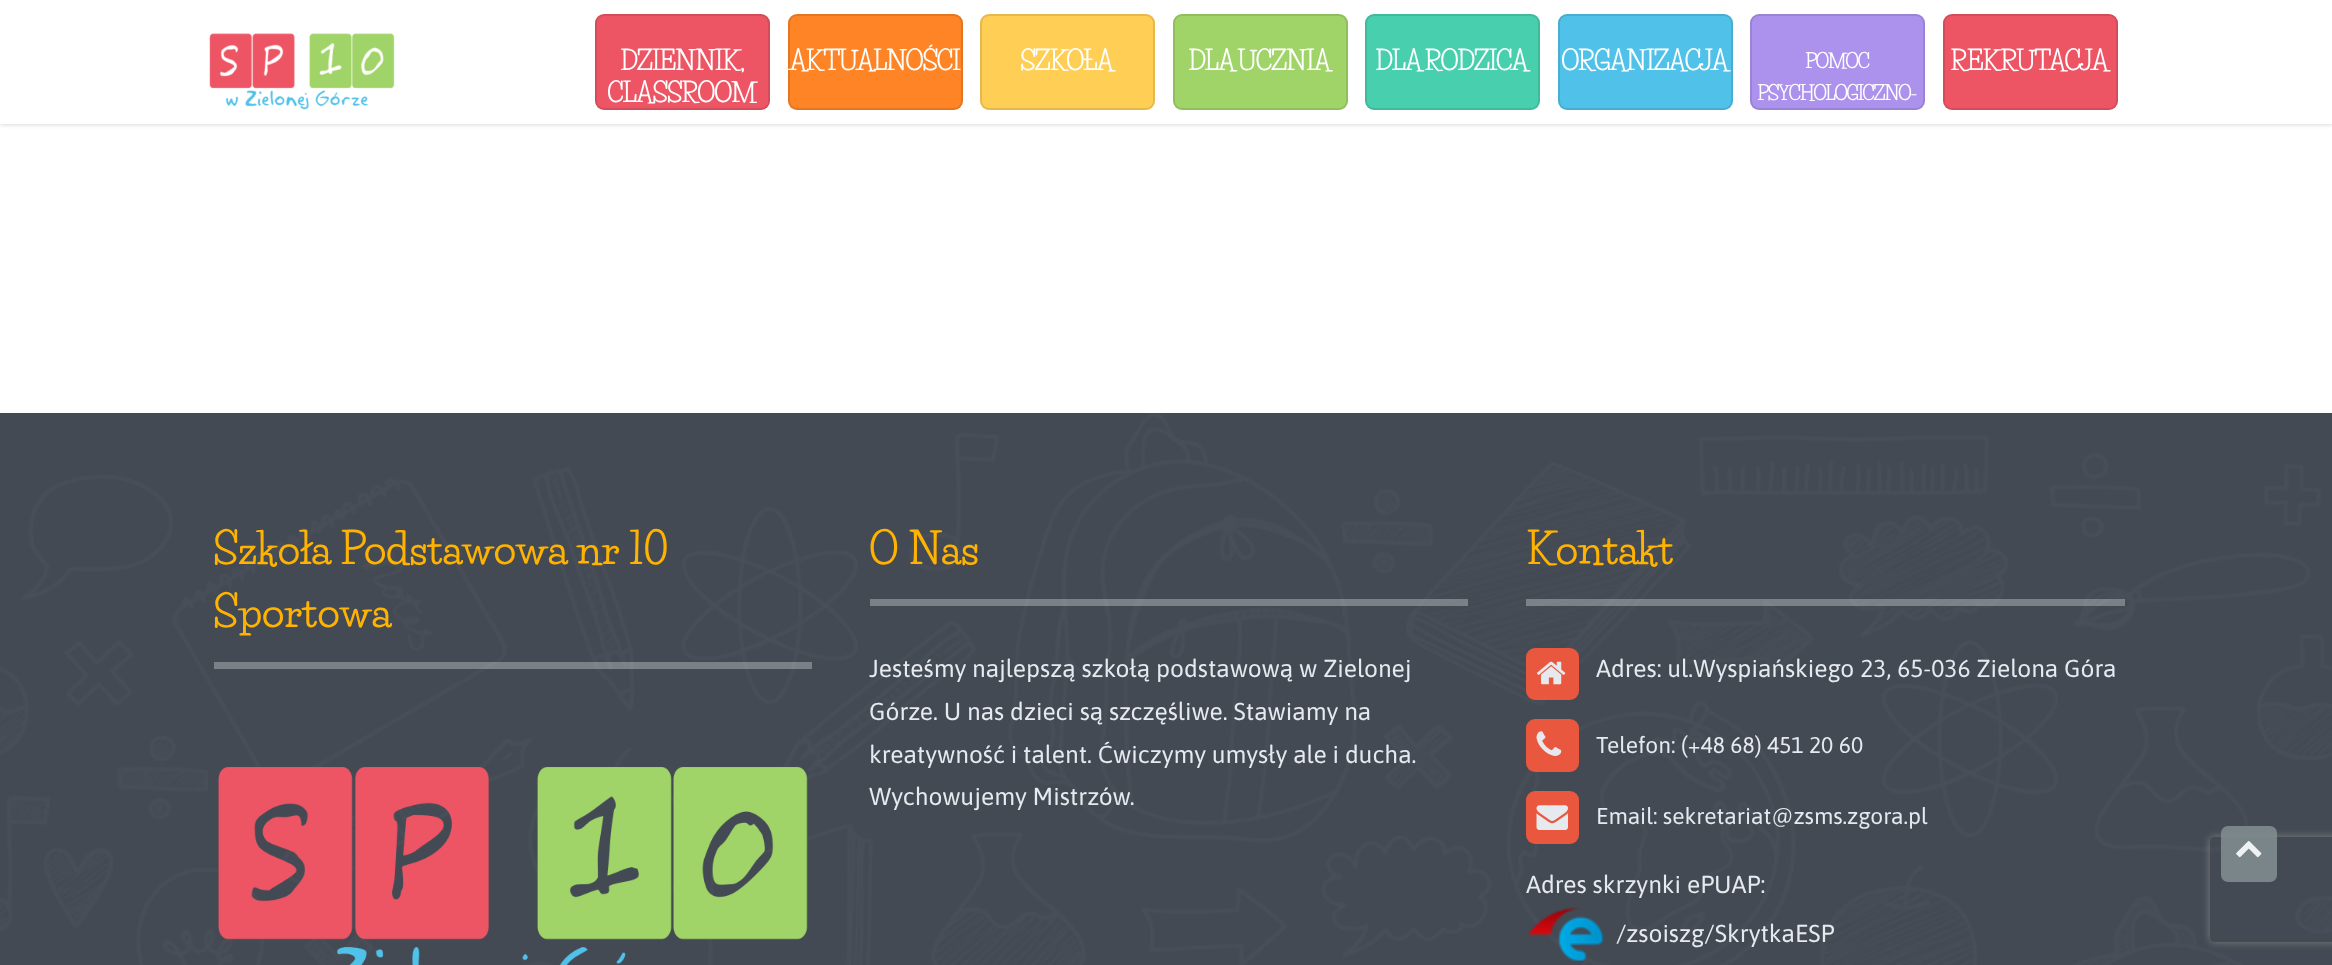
async function draw(canvas) {
	canvas.width = 2332;
	canvas.height = 965;
	const c = canvas.getContext('2d');
	c.miterLimit = 4;
	c.fontKerning = 'normal';
	async function loadImage(src) {
		const img = new Image();
		img.src = src;
		await img.decode();
		return img;
	}

	c.fillStyle = '#fff';
	c.fillRect(0, 0, 2332, 965);
	c.fillStyle = '#00000036';
	c.filter = 'blur(2.5px)';
	c.beginPath();
	c.rect(0, 0, 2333, 124);
	c.fill();
	c.filter = 'none';
	c.fillStyle = '#fff';
	c.fillRect(0, 0, 2332, 124);
	c.drawImage(await loadImage('img1.png'), 209, 33, 186, 77);
	c.fillStyle = '#ed5564';
	c.beginPath();
	c.roundRect(595, 14, 175, 96, 9);
	c.fill();
	c.beginPath();
	c.roundRect(596, 15, 173, 94, 8);
	c.strokeStyle = '#0000001a';
	c.lineWidth = 2;
	c.stroke();
	c.letterSpacing = '-1.75px';
	c.font = 'bold 26.25px Life Savers';
	c.fillStyle = '#fff';
	c.fillText('DZIENNIK,', 620, 70);
	c.fillText('CLASSROOM', 607, 102);
	c.fillStyle = '#fe8426';
	c.beginPath();
	c.roundRect(788, 14, 175, 96, 9);
	c.fill();
	c.beginPath();
	c.roundRect(789, 15, 173, 94, 8);
	c.stroke();
	c.fillStyle = '#fff';
	c.fillText('AKTUALNOŚCI', 789, 70);
	c.fillStyle = '#ffce55';
	c.beginPath();
	c.roundRect(980, 14, 175, 96, 9);
	c.fill();
	c.beginPath();
	c.roundRect(981, 15, 173, 94, 8);
	c.stroke();
	c.fillStyle = '#fff';
	c.fillText('SZKOŁA', 1020, 70);
	c.fillStyle = '#a0d468';
	c.beginPath();
	c.roundRect(1173, 14, 175, 96, 9);
	c.fill();
	c.beginPath();
	c.roundRect(1174, 15, 173, 94, 8);
	c.stroke();
	c.fillStyle = '#fff';
	c.fillText('DLA UCZNIA', 1188, 70);
	c.fillStyle = '#48cfae';
	c.beginPath();
	c.roundRect(1365, 14, 175, 96, 9);
	c.fill();
	c.beginPath();
	c.roundRect(1366, 15, 173, 94, 8);
	c.stroke();
	c.fillStyle = '#fff';
	c.fillText('DLA RODZICA', 1375, 70);
	c.fillStyle = '#50c1e9';
	c.beginPath();
	c.roundRect(1558, 14, 175, 96, 9);
	c.fill();
	c.beginPath();
	c.roundRect(1559, 15, 173, 94, 8);
	c.stroke();
	c.fillStyle = '#fff';
	c.fillText('ORGANIZACJA', 1561, 70);
	c.fillStyle = '#ac92ed';
	c.beginPath();
	c.roundRect(1750, 14, 175, 96, 9);
	c.fill();
	c.beginPath();
	c.roundRect(1751, 15, 173, 94, 8);
	c.stroke();
	c.font = 'bold 19.5px Life Savers';
	c.fillStyle = '#fff';
	c.fillText('POMOC', 1805, 68);
	c.fillText('PSYCHOLOGICZNO-', 1757, 100);
	c.fillStyle = '#ed5564';
	c.beginPath();
	c.roundRect(1943, 14, 175, 96, 9);
	c.fill();
	c.beginPath();
	c.roundRect(1944, 15, 173, 94, 8);
	c.stroke();
	c.font = 'bold 26.25px Life Savers';
	c.fillStyle = '#fff';
	c.fillText('REKRUTACJA', 1950, 70);
	c.fillStyle = '#434a54';
	c.fillRect(0, 413, 2332, 552);
	c.drawImage(await loadImage('img2.png'), 0, 413, 2332, 552);
	c.fillStyle = '#ffffff4d';
	c.fillRect(214, 662, 598, 7);
	c.letterSpacing = '0px';
	c.font = 'bold 42px Life Savers';
	c.fillStyle = '#ffb300';
	c.fillText('Szkoła Podstawowa nr 10', 213, 564);
	c.fillText('Sportowa', 213, 627);
	c.drawImage(await loadImage('img3.png'), 218, 767, 590, 198);
	c.fillStyle = '#ffffff4d';
	c.fillRect(870, 599, 598, 7);
	c.fillStyle = '#ffb300';
	c.fillText('O Nas', 869, 564);
	c.font = '24.5px Asap';
	c.fillStyle = '#e6e9ee';
	for (const [text, x, y] of [
		['Jesteśmy najlepszą szkołą podstawową w Zielonej', 869, 677],
		['Górze. U nas dzieci są szczęśliwe. Stawiamy na', 869, 720],
		['kreatywność i talent. Ćwiczymy umysły ale i ducha.', 869, 763],
		['Wychowujemy Mistrzów.', 869, 805],
	]) {
		c.fillText(text, x, y);
	}
	c.fillStyle = '#ffffff4d';
	c.fillRect(1526, 599, 599, 7);
	c.font = 'bold 42px Life Savers';
	c.fillStyle = '#ffb300';
	c.fillText('Kontakt', 1526, 564);
	c.fillStyle = '#e9573e';
	c.beginPath();
	c.roundRect(1526, 648, 53, 52, 9);
	c.fill();
	c.drawImage(await loadImage('img4.png'), 1537, 661, 29, 24);
	c.font = '24.5px Asap';
	c.fillStyle = '#e6e9ee';
	c.fillText('Adres: ul.Wyspiańskiego 23, 65-036 Zielona Góra', 1596, 677);
	c.fillStyle = '#e9573e';
	c.beginPath();
	c.roundRect(1526, 719, 53, 53, 9);
	c.fill();
	c.drawImage(await loadImage('img5.png'), 1536, 731, 26, 25);
	c.font = '22.75px Asap';
	c.fillStyle = '#e6e9ee';
	c.fillText('Telefon: (+48 68) 451 20 60', 1596, 753);
	c.fillStyle = '#e9573e';
	c.beginPath();
	c.roundRect(1526, 791, 53, 53, 9);
	c.fill();
	c.drawImage(await loadImage('img6.png'), 1536, 805, 32, 25);
	c.fillStyle = '#e6e9ee';
	c.fillText('Email: sekretariat@zsms.zgora.pl', 1596, 824);
	c.font = '24.5px Asap';
	c.fillText('Adres skrzynki ePUAP:', 1526, 893);
	c.drawImage(await loadImage('img7.png'), 1527, 907, 76, 54);
	c.fillText('/zsoiszg/SkrytkaESP', 1616, 942);
	c.save();
	c.beginPath();
	c.moveTo(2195, 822);
	c.lineTo(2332, 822);
	c.lineTo(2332, 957);
	c.lineTo(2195, 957);
	c.closePath();
	c.moveTo(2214, 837);
	c.lineTo(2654, 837);
	c.bezierCurveTo(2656, 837, 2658, 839, 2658, 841);
	c.lineTo(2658, 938);
	c.bezierCurveTo(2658, 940, 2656, 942, 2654, 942);
	c.lineTo(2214, 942);
	c.bezierCurveTo(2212, 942, 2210, 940, 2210, 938);
	c.lineTo(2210, 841);
	c.bezierCurveTo(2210, 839, 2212, 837, 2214, 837);
	c.closePath();
	c.clip('evenodd');
	c.fillStyle = '#808080';
	c.filter = 'blur(4.5px)';
	c.beginPath();
	c.roundRect(2210, 837, 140, 105, 4);
	c.fill();
	c.filter = 'none';
	c.restore();
	c.fillStyle = '#818c90e3';
	c.beginPath();
	c.roundRect(2221, 826, 56, 56, 7);
	c.fill();
	c.drawImage(await loadImage('img8.png'), 2236, 841, 26, 17);
}

draw(document.querySelector('canvas'));
